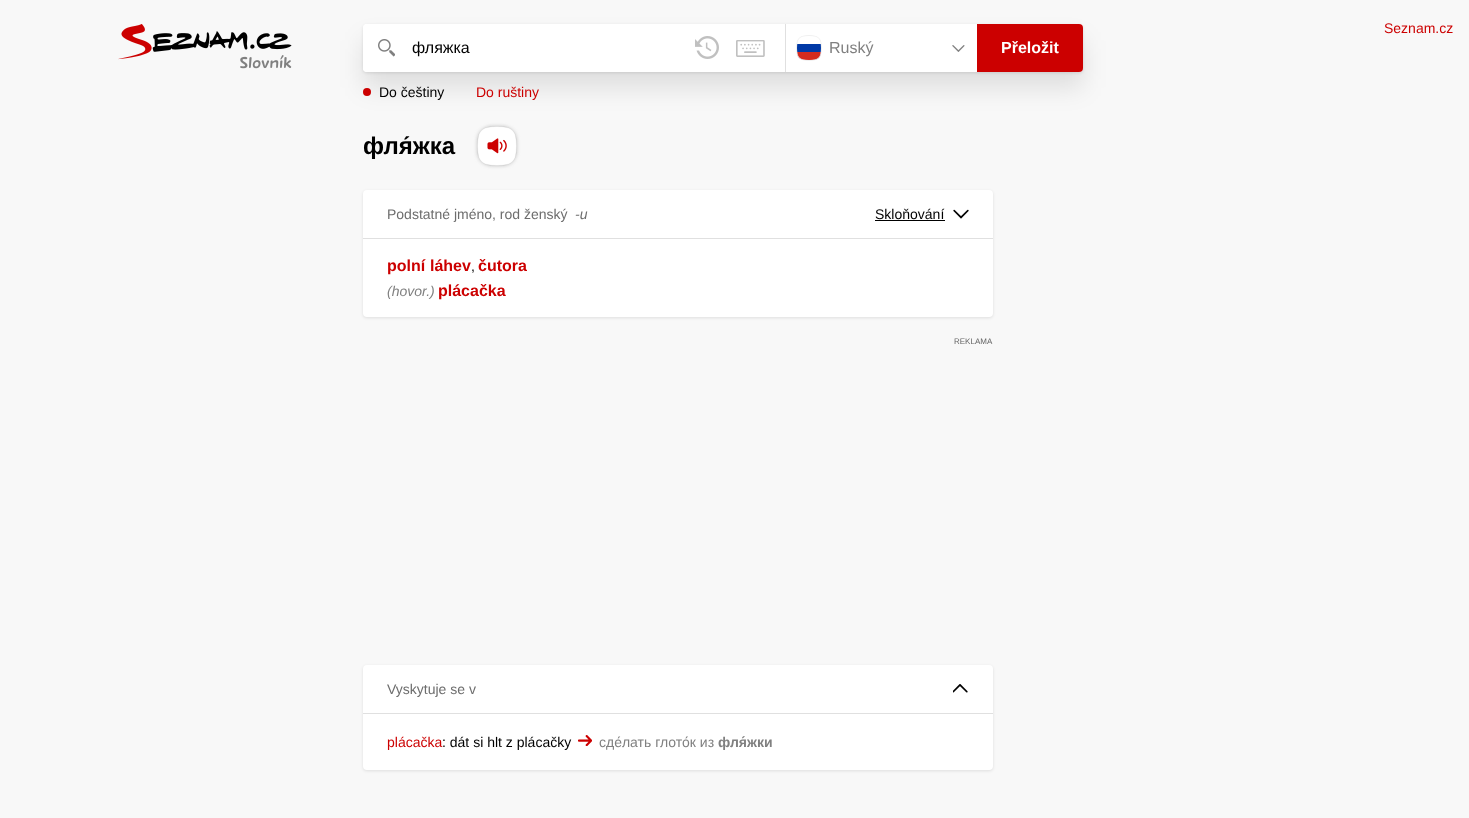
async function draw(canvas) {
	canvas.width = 1469;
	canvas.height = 818;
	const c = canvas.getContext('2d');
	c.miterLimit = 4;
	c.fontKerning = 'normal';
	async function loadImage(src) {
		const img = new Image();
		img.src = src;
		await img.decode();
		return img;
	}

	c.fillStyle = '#f8f8f8';
	c.fillRect(0, 0, 1469, 818);
	c.drawImage(await loadImage('img1.png'), 118, 24, 174, 45);
	c.fillStyle = '#0000001a';
	c.filter = 'blur(1.5px)';
	c.beginPath();
	c.roundRect(363, 25, 720, 48, 4);
	c.fill();
	c.filter = 'none';
	c.filter = 'blur(12px)';
	c.beginPath();
	c.roundRect(363, 40, 720, 48, 4);
	c.fill();
	c.filter = 'none';
	c.fillStyle = '#fff';
	c.beginPath();
	c.roundRect(363, 24, 720, 48, 4);
	c.fill();
	c.beginPath();
	c.roundRect(363, 24, 48, 48, 4);
	c.fill();
	c.drawImage(await loadImage('img2.png'), 378, 39, 17, 18);
	c.font = '16px Liberation Sans';
	c.fillStyle = '#000';
	c.fillText('фляжка', 412, 53);
	c.drawImage(await loadImage('img3.png'), 695, 36, 24, 23);
	c.drawImage(await loadImage('img4.png'), 736, 40, 29, 17);
	c.fillStyle = '#e0e0e0';
	c.fillRect(785, 24, 1, 48);
	c.drawImage(await loadImage('img5.png'), 796, 35, 26, 26);
	c.fillStyle = '#808080';
	c.fillText('Ruský', 829, 53);
	c.drawImage(await loadImage('img6.png'), 952, 45, 13, 7);
	c.fillStyle = '#c00';
	c.beginPath();
	c.roundRect(977, 24, 106, 48, [0, 4, 4, 0]);
	c.fill();
	c.font = 'bold 16px Liberation Sans';
	c.fillStyle = '#fff';
	c.fillText('Přeložit', 1001, 53);
	c.fillStyle = '#c00';
	c.beginPath();
	c.arc(367, 92, 4, 0, 2 * Math.PI);
	c.fill();
	c.font = '14px Liberation Sans';
	c.fillStyle = '#000';
	c.fillText('Do češtiny', 379, 97);
	c.fillStyle = '#c00';
	c.fillText('Do ruštiny', 476, 97);
	c.fillText('Seznam.cz', 1384, 33);
	c.font = 'bold 24px Liberation Sans';
	c.fillStyle = '#000';
	c.fillText('фля́жка', 363, 154);
	c.fillStyle = '#808080';
	c.filter = 'blur(2.5px)';
	c.beginPath();
	c.roundRect(479, 128, 36, 36, 13);
	c.fill();
	c.filter = 'none';
	c.drawImage(await loadImage('img7.png'), 477, 126, 40, 40);
	c.fillStyle = '#0000001a';
	c.filter = 'blur(1.5px)';
	c.beginPath();
	c.roundRect(363, 191, 630, 127, 4);
	c.fill();
	c.filter = 'none';
	c.fillStyle = '#fff';
	c.beginPath();
	c.roundRect(363, 190, 630, 127, 4);
	c.fill();
	c.fillStyle = '#e0e0e0';
	c.fillRect(363, 238, 630, 1);
	c.font = '14px Liberation Sans';
	c.fillStyle = '#6d6d6d';
	c.fillText('Podstatné jméno, rod ženský', 387, 219);
	c.font = 'italic 14px Liberation Sans';
	c.fillText('-и', 575, 219);
	c.font = '14px Liberation Sans';
	c.fillStyle = '#000';
	c.fillText('Skloňování', 875, 219);
	c.fillRect(875, 220, 70, 1);
	c.drawImage(await loadImage('img8.png'), 953, 209, 16, 10);
	c.font = 'bold 16px Liberation Sans';
	c.fillStyle = '#c00';
	c.fillText('polní', 387, 271);
	c.fillText('láhev', 430, 271);
	c.font = '14px Liberation Sans';
	c.fillStyle = '#000';
	c.fillText(',', 471, 271);
	c.font = 'bold 16px Liberation Sans';
	c.fillStyle = '#c00';
	c.fillText('čutora', 478, 271);
	c.font = 'italic 14px Liberation Sans';
	c.fillStyle = '#808080';
	c.fillText('(hovor.)', 387, 296);
	c.font = 'bold 16px Liberation Sans';
	c.fillStyle = '#c00';
	c.fillText('plácačka', 438, 296);
	c.font = '8px Liberation Sans';
	c.fillStyle = '#666';
	c.fillText('REKLAMA', 954, 344);
	c.fillStyle = '#0000001a';
	c.filter = 'blur(1.5px)';
	c.beginPath();
	c.roundRect(363, 666, 630, 105, 4);
	c.fill();
	c.filter = 'none';
	c.fillStyle = '#fff';
	c.beginPath();
	c.roundRect(363, 665, 630, 105, 4);
	c.fill();
	c.fillStyle = '#e0e0e0';
	c.fillRect(363, 713, 630, 1);
	c.font = '14px Liberation Sans';
	c.fillStyle = '#6d6d6d';
	c.fillText('Vyskytuje se v', 387, 694);
	c.drawImage(await loadImage('img9.png'), 953, 684, 15, 9);
	c.fillStyle = '#c00';
	c.fillText('plácačka', 387, 747);
	c.fillStyle = '#000';
	c.fillText(': dát si hlt z plácačky', 442, 747);
	c.drawImage(await loadImage('img10.png'), 578, 735, 14, 11);
	c.fillStyle = '#808080';
	c.fillText('сде́лать глото́к из', 599, 747);
	c.font = 'bold 14px Liberation Sans';
	c.fillText('фля́жки', 718, 747);
}

draw(document.querySelector('canvas'));
